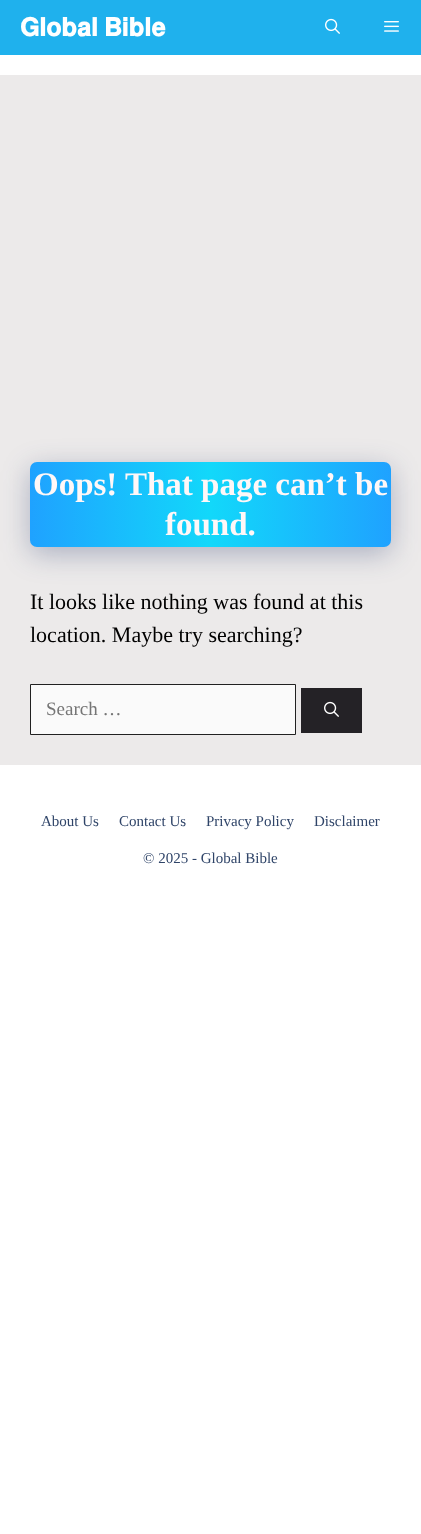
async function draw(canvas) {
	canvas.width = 421;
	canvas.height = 1534;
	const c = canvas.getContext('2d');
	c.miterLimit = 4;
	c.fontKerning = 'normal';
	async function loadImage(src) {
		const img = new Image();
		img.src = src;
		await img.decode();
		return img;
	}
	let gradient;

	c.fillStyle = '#fff';
	c.fillRect(0, 0, 421, 1534);
	c.fillStyle = '#1fb1ed';
	c.fillRect(0, 0, 421, 55);
	c.font = 'bold 25px FreeSans';
	c.fillStyle = '#fff';
	c.fillText('𝐆𝐥𝐨𝐛𝐚𝐥 𝐁𝐢𝐛𝐥𝐞', 20, 36);
	c.drawImage(await loadImage('img1.png'), 325, 18, 15, 16);
	c.drawImage(await loadImage('img2.png'), 384, 21, 15, 11);
	c.fillStyle = '#eceaea';
	c.fillRect(0, 75, 421, 690);
	c.fillStyle = '#172b634d';
	c.filter = 'blur(14px)';
	c.beginPath();
	c.roundRect(30, 469, 361, 85, 7);
	c.fill();
	c.filter = 'none';
	gradient = c.createLinearGradient(30, 505, 391, 505);
	gradient.addColorStop(0, '#1fa2ff');
	gradient.addColorStop(0.5, '#12d8fa');
	gradient.addColorStop(1, '#1fa2ff');
	c.fillStyle = gradient;
	c.beginPath();
	c.roundRect(30, 462, 361, 85, 7);
	c.fill();
	c.font = 'bold 33px Liberation Serif';
	c.fillStyle = '#fff7f7';
	c.fillText('Oops! That page can’t be', 33, 495);
	c.fillText('found.', 165, 535);
	c.font = '22px Liberation Serif';
	c.fillStyle = '#000';
	c.fillText('It looks like nothing was found at this', 30, 609);
	c.fillText('location. Maybe try searching?', 30, 642);
	c.fillStyle = '#fafafa';
	c.beginPath();
	c.rect(30.5, 684.5, 265, 50);
	c.fill();
	c.strokeStyle = '#212121';
	c.stroke();
	c.font = '19px Liberation Serif';
	c.fillStyle = '#757575';
	c.fillText('Search …', 46, 715);
	c.fillStyle = '#242226';
	c.fillRect(301, 688, 61, 45);
	c.drawImage(await loadImage('img3.png'), 324, 701, 15, 16);
	c.font = '15px Liberation Serif';
	c.fillStyle = '#2f4468';
	for (const [text, x, y] of [
		['About Us', 41, 826],
		['Contact Us', 119, 826],
		['Privacy Policy', 206, 826],
		['Disclaimer', 314, 826],
		['© 2025 - Global Bible', 143, 863],
	]) {
		c.fillText(text, x, y);
	}
}

draw(document.querySelector('canvas'));
